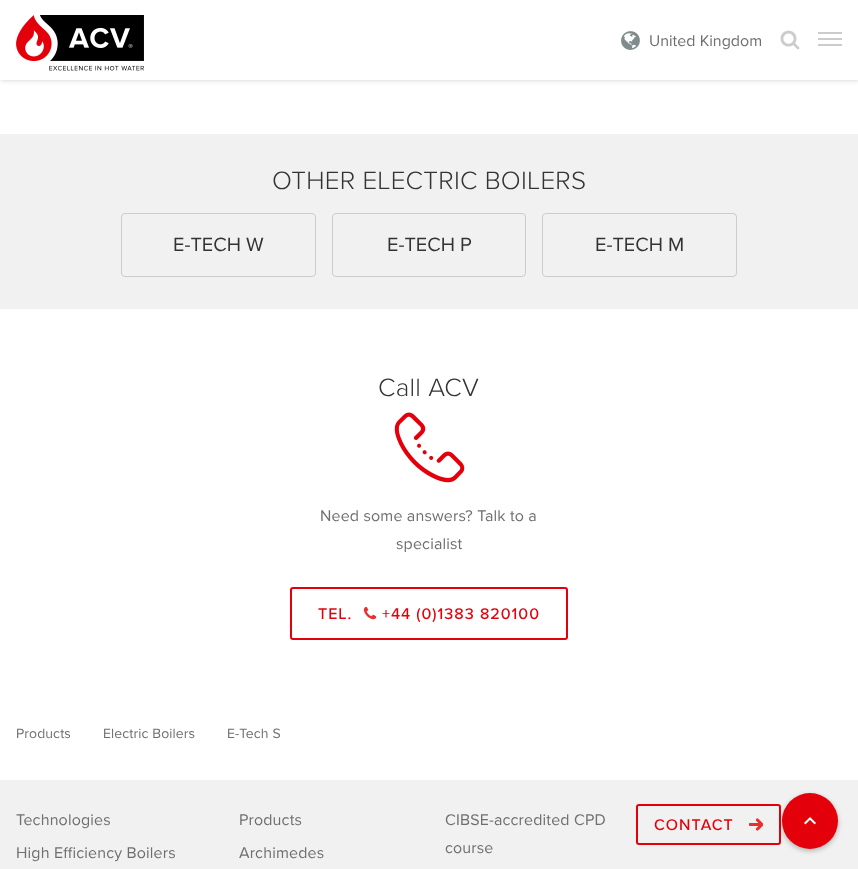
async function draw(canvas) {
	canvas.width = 858;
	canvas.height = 869;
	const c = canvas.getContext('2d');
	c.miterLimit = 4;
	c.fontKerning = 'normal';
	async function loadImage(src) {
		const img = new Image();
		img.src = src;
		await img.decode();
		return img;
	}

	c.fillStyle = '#fff';
	c.fillRect(0, 0, 858, 869);
	c.fillStyle = '#32323240';
	c.filter = 'blur(2.5px)';
	c.beginPath();
	c.rect(1, 0, 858, 80);
	c.fill();
	c.filter = 'none';
	c.fillStyle = '#fff';
	c.fillRect(0, 0, 858, 80);
	c.drawImage(await loadImage('img1.png'), 16, 15, 128, 56);
	c.drawImage(await loadImage('img2.png'), 621, 31, 19, 19);
	c.font = '16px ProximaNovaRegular';
	c.fillStyle = '#6f6f6f';
	c.fillText('United Kingdom', 649, 46);
	c.drawImage(await loadImage('img3.png'), 780, 30, 20, 20);
	for (const [x, y, w, h, color] of [
		[818, 32, 24, 2, '#ccc'],
		[818, 38, 24, 2, '#ccc'],
		[818, 44, 24, 2, '#ccc'],
		[0, 134, 858, 175, '#f1f1f1'],
	]) {
		c.fillStyle = color;
		c.fillRect(x, y, w, h);
	}
	c.letterSpacing = '0.25px';
	c.font = '300 26px Proxima Nova';
	c.fillStyle = '#333';
	c.fillText('OTHER ELECTRIC BOILERS', 272, 189);
	c.beginPath();
	c.roundRect(121.5, 213.5, 194, 63, 3.5);
	c.strokeStyle = '#ccc';
	c.stroke();
	c.letterSpacing = '0px';
	c.font = '20px ProximaNovaRegular';
	c.fillText('E-TECH W', 173, 251);
	c.beginPath();
	c.roundRect(332.5, 213.5, 193, 63, 3.5);
	c.stroke();
	c.fillText('E-TECH P', 387, 251);
	c.beginPath();
	c.roundRect(542.5, 213.5, 194, 63, 3.5);
	c.stroke();
	c.fillText('E-TECH M', 595, 251);
	c.letterSpacing = '0.25px';
	c.font = '300 26px Proxima Nova';
	c.fillText('Call ACV', 378, 396);
	c.drawImage(await loadImage('img4.png'), 394, 412, 71, 71);
	c.letterSpacing = '0.15px';
	c.font = '16px ProximaNovaRegular';
	c.fillStyle = '#6f6f6f';
	c.fillText('Need some answers? Talk to a', 320, 521);
	c.fillText('specialist', 396, 549);
	c.beginPath();
	c.roundRect(291, 588, 276, 51, 2);
	c.strokeStyle = '#e3000b';
	c.lineWidth = 2;
	c.stroke();
	c.letterSpacing = '1px';
	c.font = '500 16px Proxima Nova';
	c.fillStyle = '#e3000b';
	c.fillText('TEL.', 318, 619);
	c.drawImage(await loadImage('img5.png'), 363, 606, 14, 14);
	c.fillText('+44 (0)1383 820100', 382, 619);
	c.letterSpacing = '0.1px';
	c.font = '14px ProximaNovaRegular';
	c.fillStyle = '#6f6f6f';
	for (const [text, x, y] of [
		['Products', 16, 738],
		['Electric Boilers', 103, 738],
		['E-Tech S', 227, 738],
	]) {
		c.fillText(text, x, y);
	}
	c.fillStyle = '#f1f1f1';
	c.fillRect(0, 780, 858, 89);
	c.letterSpacing = '0.15px';
	c.font = '16px ProximaNovaRegular';
	c.fillStyle = '#6f6f6f';
	for (const [text, x, y] of [
		['Technologies', 16, 825],
		['High Efficiency Boilers', 16, 858],
		['Products', 239, 825],
		['Archimedes', 239, 858],
		['CIBSE-accredited CPD', 445, 825],
		['course', 445, 853],
	]) {
		c.fillText(text, x, y);
	}
	c.beginPath();
	c.roundRect(637, 805, 143, 39, 2);
	c.stroke();
	c.letterSpacing = '1px';
	c.font = '500 16px Proxima Nova';
	c.fillStyle = '#e3000b';
	c.fillText('CONTACT', 654, 830);
	c.drawImage(await loadImage('img6.png'), 749, 818, 14, 13);
	c.fillStyle = '#00000042';
	c.filter = 'blur(2.5px)';
	c.beginPath();
	c.roundRect(782, 795, 56, 56, 28);
	c.fill();
	c.filter = 'none';
	c.fillStyle = '#e3000b';
	c.beginPath();
	c.arc(810, 821, 28, 0, 2 * Math.PI);
	c.fill();
	c.drawImage(await loadImage('img7.png'), 804, 817, 12, 8);
}

draw(document.querySelector('canvas'));
